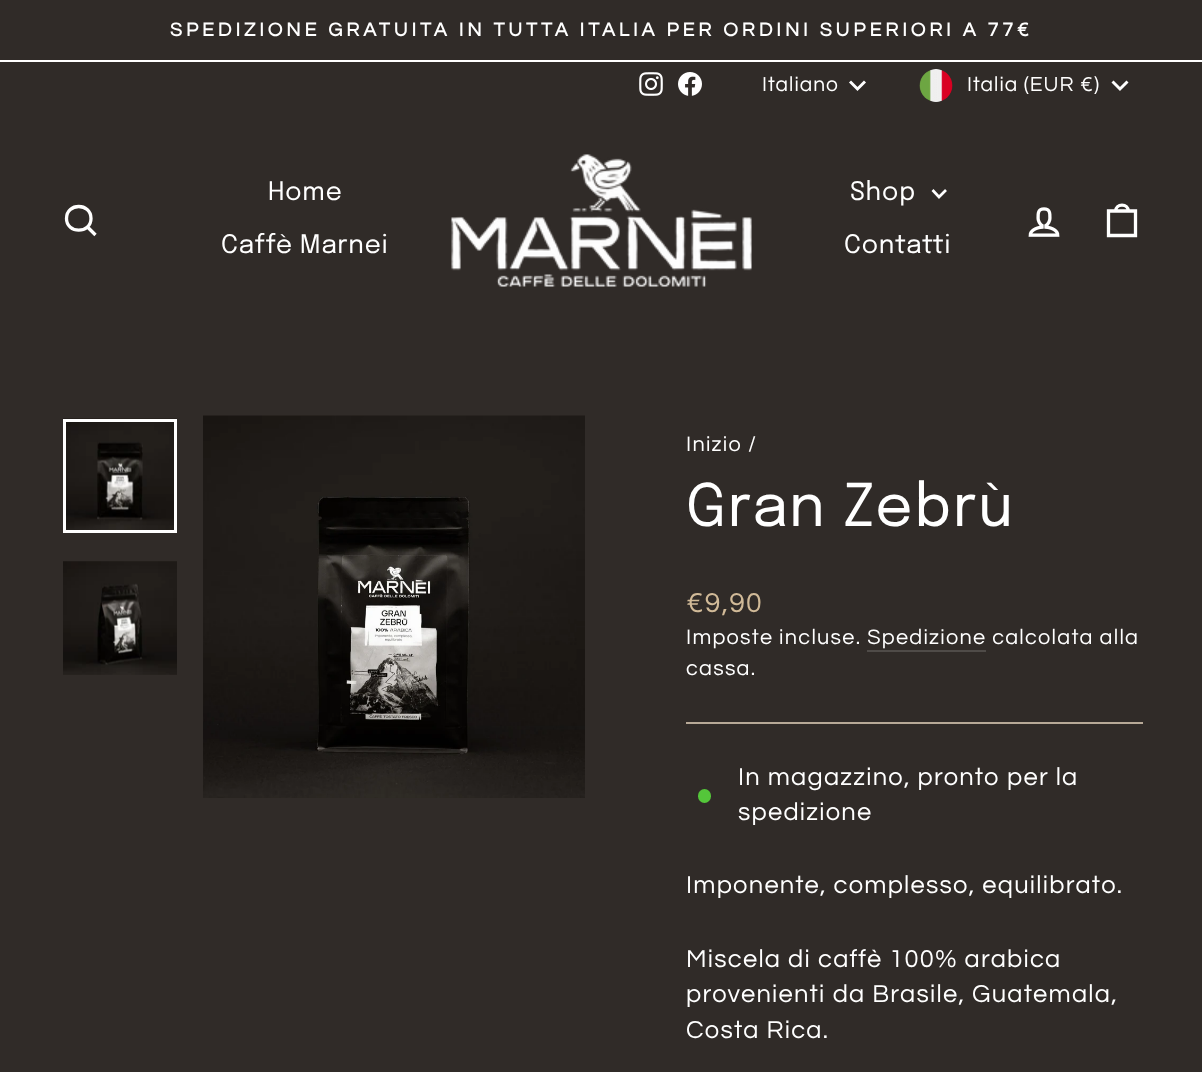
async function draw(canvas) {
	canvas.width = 1202;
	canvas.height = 1072;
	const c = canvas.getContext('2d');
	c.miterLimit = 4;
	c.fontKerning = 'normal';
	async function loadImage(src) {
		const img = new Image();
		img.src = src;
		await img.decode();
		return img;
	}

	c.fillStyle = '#302b28';
	c.fillRect(0, 0, 1202, 1072);
	c.fillStyle = '#fff';
	c.fillRect(0, 60, 1202, 2);
	c.letterSpacing = '3.9px';
	c.font = 'bold 19.5px Questrial';
	c.fillText('SPEDIZIONE GRATUITA IN TUTTA ITALIA PER ORDINI SUPERIORI A 77€', 170, 36);
	c.drawImage(await loadImage('img1.png'), 639, 72, 24, 24);
	c.drawImage(await loadImage('img2.png'), 678, 72, 24, 24);
	c.letterSpacing = '1px';
	c.font = '21px Questrial';
	c.fillText('Italiano', 762, 91);
	c.beginPath();
	c.moveTo(850, 81.5);
	c.lineTo(857.5, 89);
	c.lineTo(865, 81.5);
	c.strokeStyle = '#fff';
	c.lineWidth = 2.9;
	c.stroke();
	c.drawImage(await loadImage('img3.png'), 919, 69, 34, 33);
	c.fillText('Italia (EUR €)', 967, 91);
	c.beginPath();
	c.moveTo(1112.5, 81.5);
	c.lineTo(1120, 89);
	c.lineTo(1127.5, 81.5);
	c.stroke();
	c.beginPath();
	c.moveTo(91, 218.5);
	c.bezierCurveTo(91, 234, 66.5, 234, 66.5, 218.5);
	c.bezierCurveTo(66.5, 202.5, 91, 202.5, 91, 218.5);
	c.closePath();
	c.moveTo(95.5, 235);
	c.lineTo(87.5, 227);
	c.lineWidth = 3.3;
	c.stroke();
	c.letterSpacing = '0.6px';
	c.font = '25.5px Epilogue';
	c.fillText('Home', 268, 200);
	c.fillText('Caffè Marnei', 221, 253);
	c.drawImage(await loadImage('img4.png'), 451, 154, 301, 133);
	c.fillText('Shop', 850, 200);
	c.beginPath();
	c.moveTo(932.5, 190);
	c.lineTo(939, 197);
	c.lineTo(946, 190);
	c.lineWidth = 2.7;
	c.stroke();
	c.fillText('Contatti', 844, 253);
	c.drawImage(await loadImage('img5.png'), 1028, 207, 32, 30);
	c.beginPath();
	c.moveTo(1108.5, 211);
	c.lineTo(1135.5, 211);
	c.lineTo(1135.5, 235.5);
	c.lineTo(1108.5, 235.5);
	c.closePath();
	c.moveTo(1115.5, 211.5);
	c.bezierCurveTo(1115.5, 203, 1128.5, 203, 1128.5, 211.5);
	c.lineWidth = 3.3;
	c.stroke();
	c.drawImage(await loadImage('img6.png'), 63, 418, 114, 112);
	c.lineWidth = 3;
	c.strokeRect(64.5, 420.5, 111, 111);
	c.drawImage(await loadImage('img7.png'), 63, 561, 114, 114);
	c.drawImage(await loadImage('img8.png'), 203, 415, 382, 383);
	c.letterSpacing = '1.25px';
	c.font = '21.7px Questrial';
	c.fillText('Inizio', 686, 451);
	c.fillText('/', 748, 451);
	c.letterSpacing = '1.5px';
	c.font = '58.5px Epilogue';
	c.fillText('Gran Zebrù', 686, 526);
	c.letterSpacing = '1.25px';
	c.font = '28.5px Questrial';
	c.fillStyle = '#d1ba98';
	c.fillText('€9,90', 686, 612);
	c.font = '21.7px Questrial';
	c.fillStyle = '#fff';
	c.fillText('Imposte incluse. Spedizione calcolata alla', 686, 644);
	c.fillStyle = '#4f4b48';
	c.fillRect(867, 650, 119, 2);
	c.fillStyle = '#fff';
	c.fillText('cassa.', 686, 675);
	c.fillStyle = '#b7a997';
	c.fillRect(686, 722, 457, 2);
	c.fillStyle = '#54c63a';
	c.beginPath();
	c.roundRect(698, 789, 13, 14, 6.5);
	c.fill();
	c.font = '25.5px Questrial';
	c.fillStyle = '#fff';
	for (const [text, x, y] of [
		['In magazzino, pronto per la', 738, 785],
		['spedizione', 738, 820],
		['Imponente, complesso, equilibrato.', 686, 893],
		['Miscela di caffè 100% arabica', 686, 967],
		['provenienti da Brasile, Guatemala,', 686, 1002],
		['Costa Rica.', 686, 1038],
	]) {
		c.fillText(text, x, y);
	}
}

draw(document.querySelector('canvas'));
